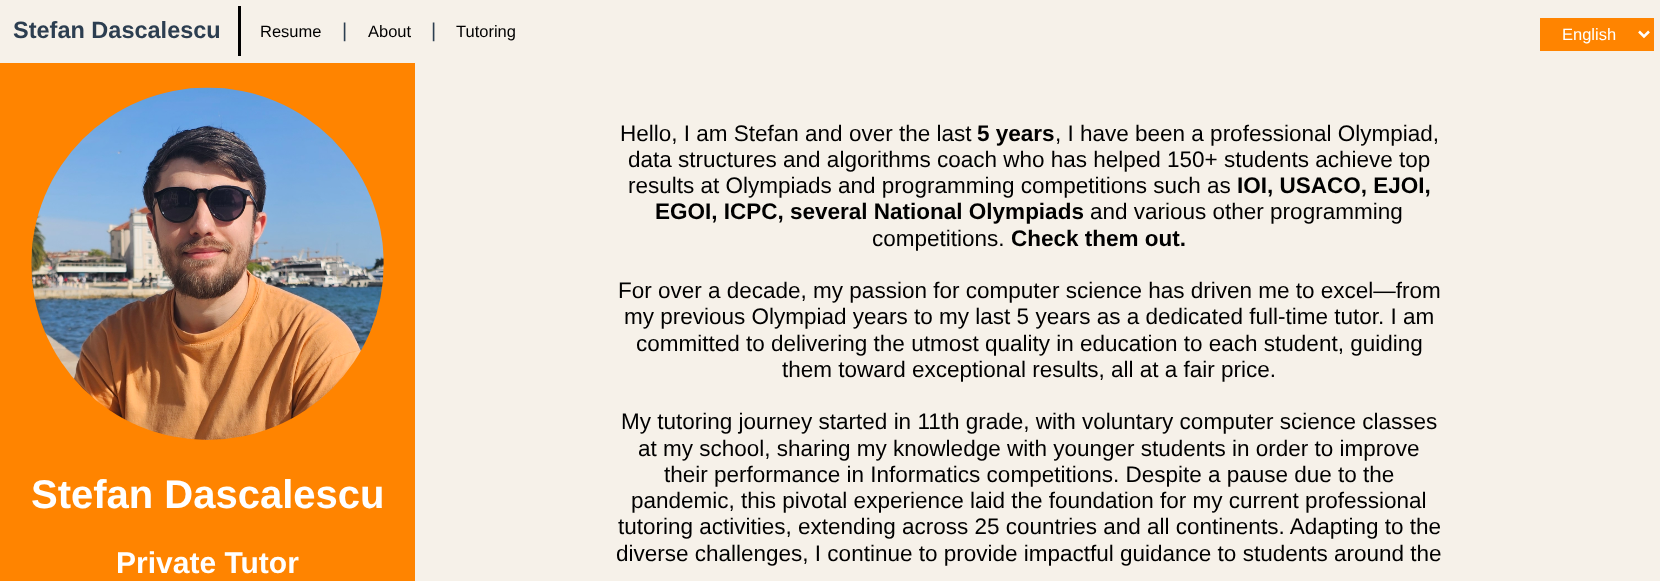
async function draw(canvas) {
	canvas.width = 1660;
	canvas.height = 581;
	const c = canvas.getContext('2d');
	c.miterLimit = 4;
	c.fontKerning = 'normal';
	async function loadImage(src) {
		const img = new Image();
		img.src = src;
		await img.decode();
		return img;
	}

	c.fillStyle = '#f6f1e9';
	c.fillRect(0, 0, 1660, 581);
	c.font = 'bold 23.5px Liberation Sans';
	c.fillStyle = '#2c3e50';
	c.fillText('Stefan Dascalescu', 13, 38);
	c.fillStyle = '#000';
	c.fillRect(238, 6, 3, 50);
	c.font = '16.5px Liberation Sans';
	c.fillText('Resume', 260, 37);
	c.font = '20px Liberation Sans';
	c.fillStyle = '#2c3e50';
	c.fillText('|', 342, 37);
	c.font = '16.5px Liberation Sans';
	c.fillStyle = '#000';
	c.fillText('About', 368, 37);
	c.font = '20px Liberation Sans';
	c.fillStyle = '#2c3e50';
	c.fillText('|', 431, 37);
	c.font = '16.5px Liberation Sans';
	c.fillStyle = '#000';
	c.fillText('Tutoring', 456, 37);
	c.fillStyle = '#ff8400';
	c.fillRect(1540, 18, 114, 33);
	c.beginPath();
	c.moveTo(1639, 31.5);
	c.lineTo(1644, 36.5);
	c.lineTo(1649, 31.5);
	c.strokeStyle = '#fff';
	c.lineWidth = 2.5;
	c.stroke();
	c.fillStyle = '#fff';
	c.fillText('English', 1562, 40);
	c.fillStyle = '#ff8400';
	c.fillRect(0, 63, 415, 518);
	c.drawImage(await loadImage('img1.png'), 31, 87, 353, 353);
	c.font = 'bold 40px Liberation Sans';
	c.fillStyle = '#fff';
	c.fillText('Stefan Dascalescu', 31, 508);
	c.font = 'bold 30px Liberation Sans';
	c.fillText('Private Tutor', 116, 573);
	c.font = '22.5px Liberation Sans';
	c.fillStyle = '#000';
	c.fillText('Hello, I am Stefan and over the last', 620, 141);
	c.font = 'bold 22.5px Liberation Sans';
	c.fillText('5 years', 977, 141);
	c.font = '22.5px Liberation Sans';
	for (const [text, x, y] of [
		[', I have been a professional Olympiad,', 1055, 141],
		['data structures and algorithms coach who has helped 150+ students achieve top', 628, 167],
		['results at Olympiads and programming competitions such as', 628, 193],
	]) {
		c.fillText(text, x, y);
	}
	c.font = 'bold 22.5px Liberation Sans';
	c.fillText('IOI, USACO, EJOI,', 1237, 193);
	c.fillText('EGOI, ICPC, several National Olympiads', 655, 219);
	c.font = '22.5px Liberation Sans';
	c.fillText('and various other programming', 1090, 219);
	c.fillText('competitions.', 872, 246);
	c.font = 'bold 22.5px Liberation Sans';
	c.fillText('Check them out.', 1011, 246);
	c.font = '22.5px Liberation Sans';
	for (const [text, x, y] of [
		['For over a decade, my passion for computer science has driven me to excel—from', 618, 298],
		['my previous Olympiad years to my last 5 years as a dedicated full-time tutor. I am', 624, 324],
		['committed to delivering the utmost quality in education to each student, guiding', 636, 351],
		['them toward exceptional results, all at a fair price.', 782, 377],
		['My tutoring journey started in 11th grade, with voluntary computer science classes', 621, 429],
		['at my school, sharing my knowledge with younger students in order to improve', 638, 456],
		['their performance in Informatics competitions. Despite a pause due to the', 664, 482],
		['pandemic, this pivotal experience laid the foundation for my current professional', 631, 508],
		['tutoring activities, extending across 25 countries and all continents. Adapting to the', 618, 534],
		['diverse challenges, I continue to provide impactful guidance to students around the', 616, 561],
	]) {
		c.fillText(text, x, y);
	}
}

draw(document.querySelector('canvas'));
